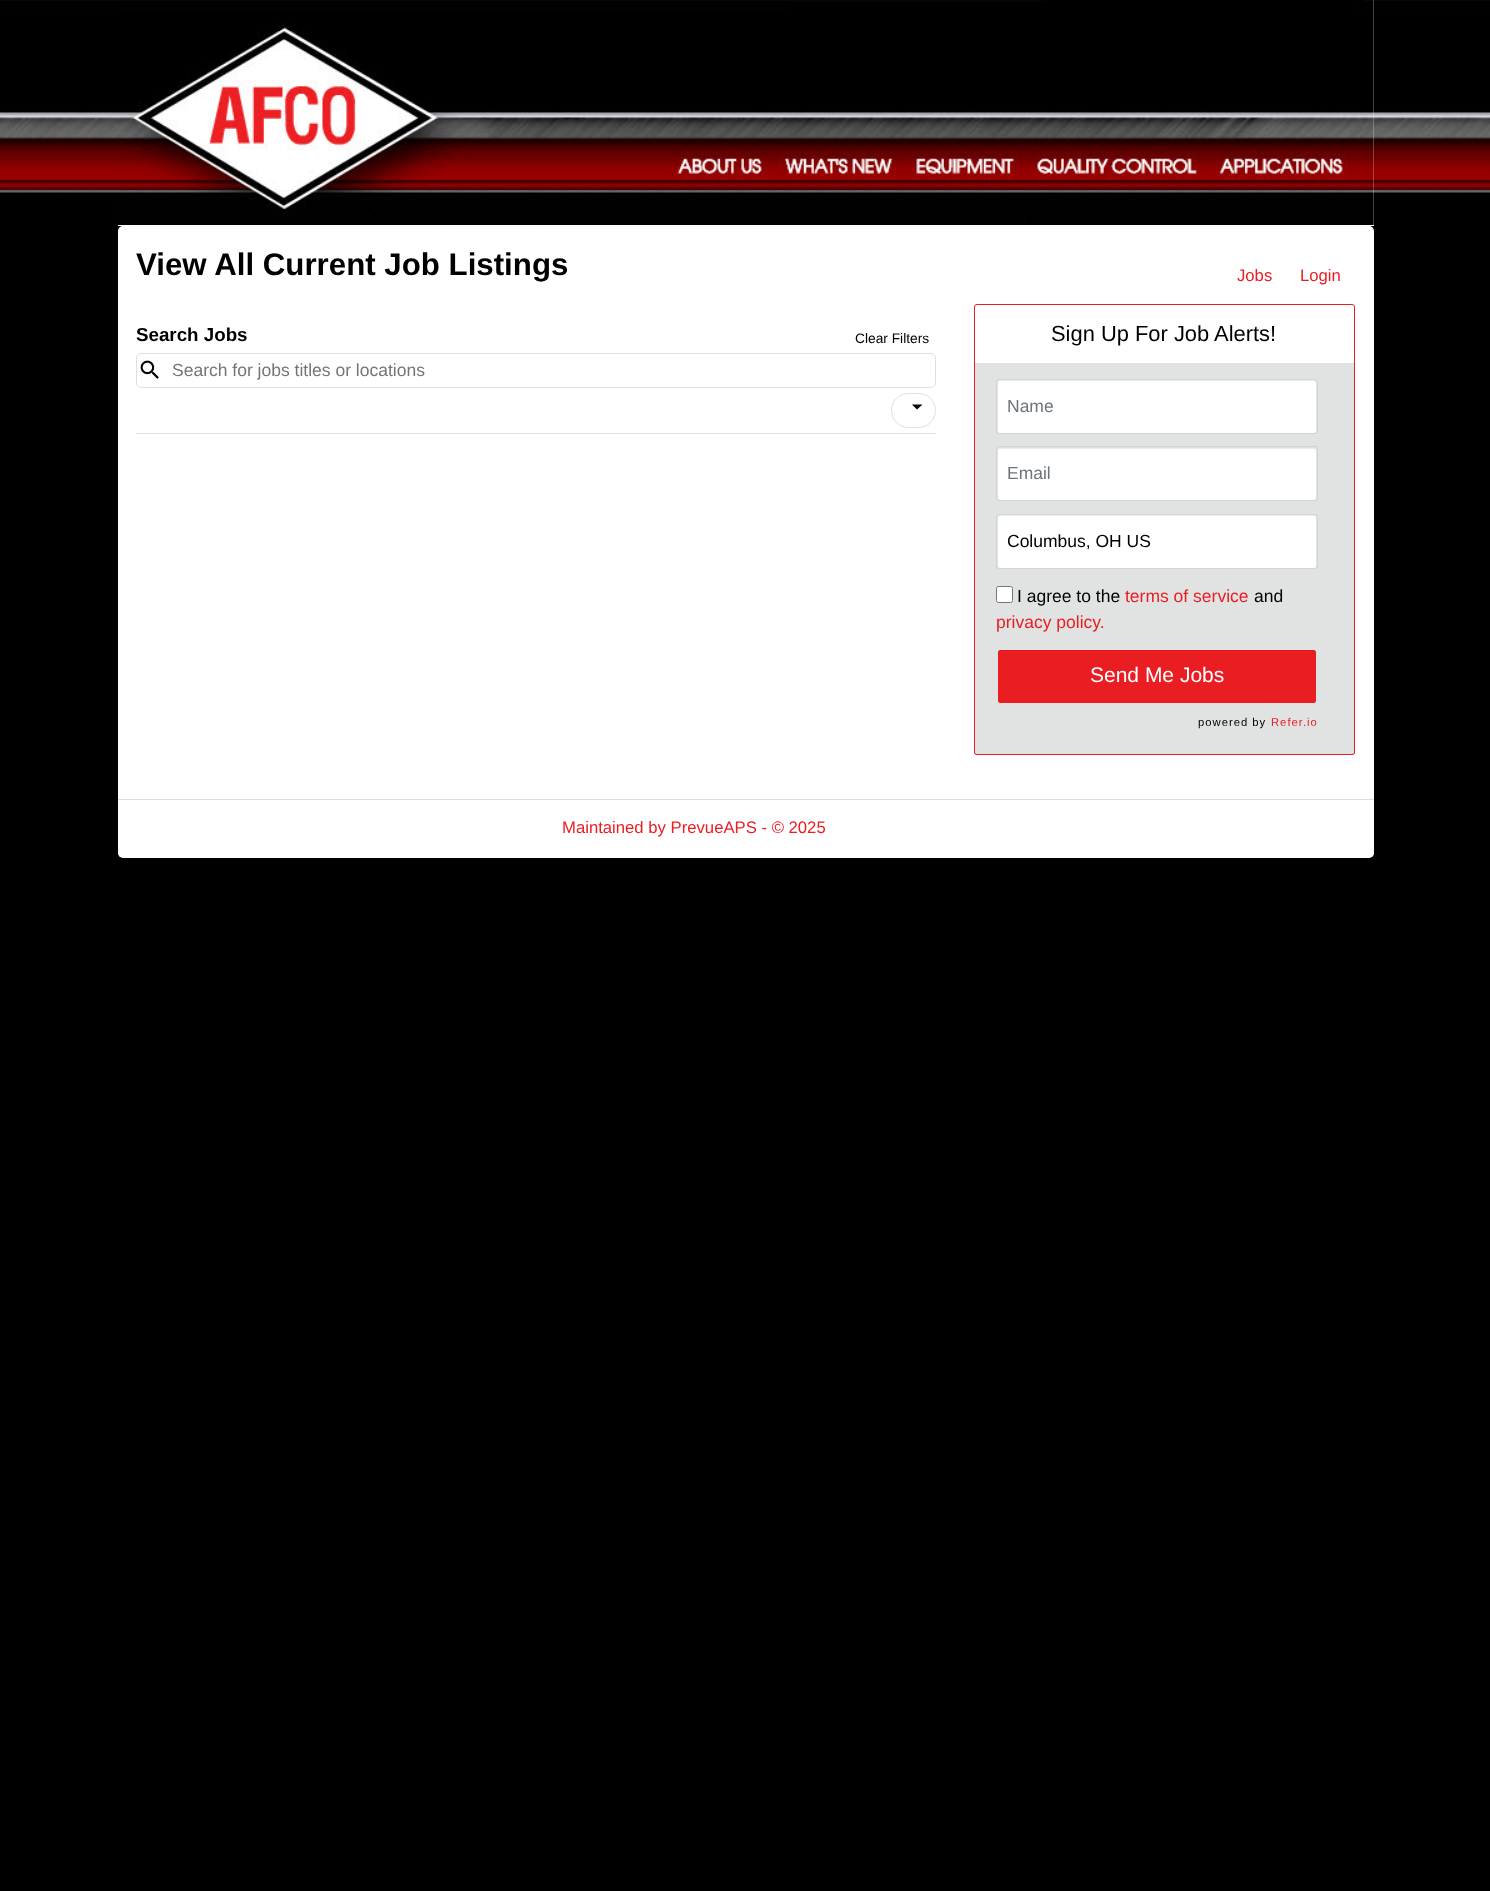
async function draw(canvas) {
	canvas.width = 1490;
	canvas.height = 1891;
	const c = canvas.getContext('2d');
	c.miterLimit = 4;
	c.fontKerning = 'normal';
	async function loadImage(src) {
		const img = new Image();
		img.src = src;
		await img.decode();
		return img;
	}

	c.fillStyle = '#000';
	c.fillRect(0, 0, 1490, 1891);
	c.drawImage(await loadImage('img1.png'), 0, 0, 1490, 193);
	c.fillStyle = '#fff';
	c.fillRect(118, 0, 1256, 226);
	c.drawImage(await loadImage('img2.png'), 118, 0, 1256, 225);
	c.beginPath();
	c.roundRect(118, 226, 1256, 632, 5);
	c.fill();
	c.font = 'bold 31.25px Liberation Sans';
	c.fillStyle = '#000';
	c.fillText('View All Current Job Listings', 136, 275);
	c.font = '16.7px Liberation Sans';
	c.fillStyle = '#ea1d22';
	c.fillText('Jobs', 1237, 281);
	c.fillText('Login', 1300, 281);
	c.fillStyle = '#e0e0e0';
	c.fillRect(136, 433, 800, 1);
	c.font = 'bold 18.75px Liberation Sans';
	c.fillStyle = '#000';
	c.fillText('Search Jobs', 136, 341);
	c.font = '13.75px Liberation Sans';
	c.fillText('Clear Filters', 855, 343);
	c.beginPath();
	c.roundRect(136.5, 353.5, 799, 34, 4.5);
	c.strokeStyle = '#e0e0e0';
	c.stroke();
	c.drawImage(await loadImage('img3.png'), 140, 360, 19, 19);
	c.font = '17.5px Liberation Sans';
	c.fillStyle = '#757575';
	c.fillText('Search for jobs titles or locations', 172, 376);
	c.beginPath();
	c.roundRect(891.5, 393.5, 44, 34, 17);
	c.stroke();
	c.fillStyle = '#000';
	c.beginPath();
	c.moveTo(912, 404.5);
	c.lineTo(917, 409.5);
	c.lineTo(922.5, 404.5);
	c.closePath();
	c.fill();
	c.beginPath();
	c.roundRect(974.5, 304.5, 380, 59, [2.5, 2.5, 0, 0]);
	c.strokeStyle = '#ea1d22';
	c.stroke();
	c.font = '21.9px Liberation Sans';
	c.fillText('Sign Up For Job Alerts!', 1051, 341);
	c.fillStyle = '#e1e3e3';
	c.beginPath();
	c.roundRect(975, 363, 379, 391, [0, 0, 2, 2]);
	c.fill();
	c.fillStyle = '#ea1d22';
	c.beginPath();
	c.moveTo(974, 362);
	c.lineTo(1355, 362);
	c.lineTo(1355, 752);
	c.bezierCurveTo(1355, 754, 1354, 755, 1352, 755);
	c.lineTo(977, 755);
	c.bezierCurveTo(975, 755, 974, 754, 974, 752);
	c.closePath();
	c.moveTo(975, 362);
	c.lineTo(1354, 362);
	c.lineTo(1354, 752);
	c.bezierCurveTo(1354, 753, 1353, 754, 1352, 754);
	c.lineTo(977, 754);
	c.bezierCurveTo(976, 754, 975, 753, 975, 752);
	c.closePath();
	c.fill('evenodd');
	c.fillStyle = '#fff';
	c.beginPath();
	c.roundRect(998, 380, 318, 53, 2);
	c.fill();
	c.fillStyle = '#00000012';
	c.beginPath();
	c.moveTo(999, 381);
	c.lineTo(1314, 381);
	c.bezierCurveTo(1315, 381, 1316, 382, 1316, 383);
	c.bezierCurveTo(1316, 382, 1316, 380, 1314, 380);
	c.lineTo(999, 380);
	c.lineTo(998, 381);
	c.lineTo(998, 383);
	c.bezierCurveTo(998, 382, 998, 381, 999, 381);
	c.closePath();
	c.fill();
	c.beginPath();
	c.roundRect(996.5, 379.5, 321, 54, 2.5);
	c.strokeStyle = '#ced4da';
	c.stroke();
	c.font = '17.5px Liberation Sans';
	c.fillStyle = '#6c757d';
	c.fillText('Name', 1007, 412);
	c.fillStyle = '#fff';
	c.beginPath();
	c.roundRect(998, 448, 318, 52, 2);
	c.fill();
	c.fillStyle = '#00000012';
	c.beginPath();
	c.moveTo(999, 449);
	c.lineTo(1314, 449);
	c.bezierCurveTo(1315, 449, 1316, 450, 1316, 451);
	c.bezierCurveTo(1316, 450, 1316, 448, 1314, 448);
	c.lineTo(999, 448);
	c.lineTo(998, 449);
	c.lineTo(998, 451);
	c.bezierCurveTo(998, 450, 998, 449, 999, 449);
	c.closePath();
	c.fill();
	c.beginPath();
	c.roundRect(996.5, 446.5, 321, 54, 2.5);
	c.stroke();
	c.fillStyle = '#6c757d';
	c.fillText('Email', 1007, 479);
	c.fillStyle = '#fff';
	c.beginPath();
	c.roundRect(998, 515, 318, 53, 2);
	c.fill();
	c.fillStyle = '#00000012';
	c.beginPath();
	c.moveTo(999, 516);
	c.lineTo(1314, 516);
	c.bezierCurveTo(1315, 516, 1316, 517, 1316, 518);
	c.bezierCurveTo(1316, 517, 1316, 515, 1314, 515);
	c.lineTo(999, 515);
	c.lineTo(998, 516);
	c.lineTo(998, 518);
	c.bezierCurveTo(998, 517, 998, 516, 999, 516);
	c.closePath();
	c.fill();
	c.beginPath();
	c.roundRect(996.5, 514.5, 321, 54, 2.5);
	c.stroke();
	c.save();
	c.beginPath();
	c.rect(1008, 531, 298, 20);
	c.clip();
	c.fillStyle = '#000';
	c.fillText('Columbus, OH US', 1007, 547);
	c.restore();
	c.fillStyle = '#fff';
	c.beginPath();
	c.roundRect(996.5, 586.5, 16, 16, 2);
	c.fill();
	c.strokeStyle = '#767676';
	c.stroke();
	c.fillStyle = '#000';
	c.fillText('I agree to the', 1017, 602);
	c.fillStyle = '#ea1d22';
	c.fillText('terms of service', 1125, 602);
	c.fillStyle = '#000';
	c.fillText('and', 1254, 602);
	c.fillStyle = '#ea1d22';
	c.fillText('privacy policy.', 996, 628);
	c.beginPath();
	c.roundRect(998, 650, 318, 53, 2.5);
	c.fill();
	c.fillStyle = '#00000012';
	c.beginPath();
	c.moveTo(1000, 651);
	c.lineTo(1314, 651);
	c.bezierCurveTo(1315, 651, 1316, 652, 1316, 654);
	c.lineTo(1316, 652);
	c.bezierCurveTo(1316, 651, 1315, 650, 1314, 650);
	c.lineTo(1000, 650);
	c.bezierCurveTo(999, 650, 998, 651, 998, 652);
	c.lineTo(998, 654);
	c.bezierCurveTo(998, 652, 999, 651, 1000, 651);
	c.closePath();
	c.fill();
	c.font = '21px Liberation Sans';
	c.fillStyle = '#fff';
	c.fillText('Send Me Jobs', 1090, 682);
	c.letterSpacing = '1px';
	c.font = '11.25px Liberation Sans';
	c.fillStyle = '#000';
	c.fillText('powered by', 1198, 726);
	c.fillStyle = '#ea1d22';
	c.fillText('Refer.io', 1271, 726);
	c.fillStyle = '#fff';
	c.beginPath();
	c.roundRect(118, 799, 1256, 57, [0, 0, 4, 4]);
	c.fill();
	c.fillStyle = '#ddd';
	c.fillRect(118, 799, 1256, 1);
	c.letterSpacing = '0px';
	c.font = '16.7px Liberation Sans';
	c.fillStyle = '#ea1d22';
	c.fillText('Maintained by PrevueAPS - © 2025', 562, 833);
}

draw(document.querySelector('canvas'));
